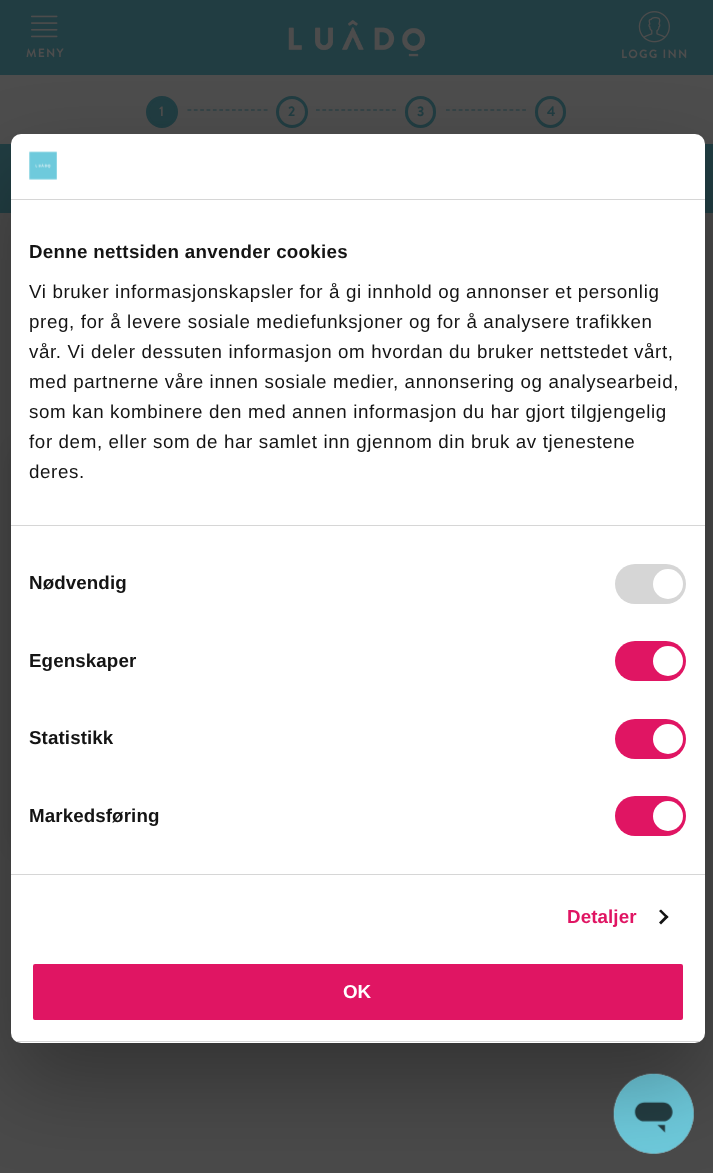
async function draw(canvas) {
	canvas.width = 713;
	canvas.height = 1173;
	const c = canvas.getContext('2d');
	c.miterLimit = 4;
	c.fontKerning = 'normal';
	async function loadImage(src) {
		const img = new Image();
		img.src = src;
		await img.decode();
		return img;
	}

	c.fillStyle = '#4a4a4a';
	c.fillRect(0, 0, 713, 1173);
	c.fillStyle = '#213d42';
	c.fillRect(0, 0, 713, 75);
	c.drawImage(await loadImage('img1.png'), 31, 15, 27, 23);
	c.letterSpacing = '1.25px';
	c.font = 'bold 12px Brandon Grotesque';
	c.fillStyle = '#4d4d4d';
	c.fillText('MENY', 26, 57);
	c.drawImage(await loadImage('img2.png'), 288, 20, 137, 37);
	c.drawImage(await loadImage('img3.png'), 638, 11, 32, 32);
	c.fillText('LOGG INN', 621, 58);
	c.fillRect(0, 75, 713, 69);
	c.fillStyle = '#213d42';
	c.beginPath();
	c.arc(162, 112, 14.5, 0, 2 * Math.PI);
	c.fill();
	c.strokeStyle = '#213d42';
	c.lineWidth = 3;
	c.stroke();
	c.letterSpacing = '0px';
	c.font = 'bold 14px Brandon Grotesque';
	c.fillStyle = '#4d4d4d';
	c.fillText('1', 159, 116);
	c.beginPath();
	c.moveTo(187.5, 110);
	c.lineTo(267.5, 110);
	c.lineWidth = 1.2;
	c.setLineDash([3.75, 2.6]);
	c.stroke();
	c.beginPath();
	c.arc(292, 112, 14.5, 0, 2 * Math.PI);
	c.lineWidth = 3;
	c.setLineDash([]);
	c.stroke();
	c.fillStyle = '#213d42';
	c.fillText('2', 288, 116);
	c.beginPath();
	c.moveTo(316, 110);
	c.lineTo(396, 110);
	c.lineWidth = 1.2;
	c.setLineDash([3.75, 2.6]);
	c.stroke();
	c.beginPath();
	c.roundRect(406.5, 97.5, 28, 29, 14);
	c.lineWidth = 3;
	c.setLineDash([]);
	c.stroke();
	c.fillText('3', 417, 116);
	c.beginPath();
	c.moveTo(446, 110);
	c.lineTo(526, 110);
	c.lineWidth = 1.2;
	c.setLineDash([3.75, 2.6]);
	c.stroke();
	c.beginPath();
	c.roundRect(536.5, 97.5, 28, 29, 14);
	c.lineWidth = 3;
	c.setLineDash([]);
	c.stroke();
	c.fillText('4', 547, 116);
	c.fillRect(0, 144, 713, 69);
	c.fillStyle = '#00000033';
	c.filter = 'blur(12.5px)';
	c.beginPath();
	c.roundRect(20, 453, 674, 390, 6);
	c.fill();
	c.filter = 'none';
	c.drawImage(await loadImage('img5.png'), 613, 1073, 81, 81);
	c.fillStyle = '#0000004d';
	c.filter = 'blur(42.5px)';
	c.beginPath();
	c.roundRect(11, 174, 694, 909, 10);
	c.fill();
	c.filter = 'none';
	c.fillStyle = '#fff';
	c.beginPath();
	c.roundRect(11, 134, 694, 909, 10);
	c.fill();
	c.fillStyle = '#d6d6d6';
	c.fillRect(11, 199, 694, 1);
	c.drawImage(await loadImage('img4.png'), 29, 151, 28, 29);
	c.fillRect(11, 525, 694, 1);
	c.letterSpacing = '0.3px';
	c.font = 'bold 18.75px Liberation Sans';
	c.fillStyle = '#141414';
	c.fillText('Denne nettsiden anvender cookies', 29, 258);
	c.letterSpacing = '0.62px';
	c.font = '18.75px Liberation Sans';
	for (const [text, x, y] of [
		['Vi bruker informasjonskapsler for å gi innhold og annonser et personlig', 29, 298],
		['preg, for å levere sosiale mediefunksjoner og for å analysere trafikken', 29, 328],
		['vår. Vi deler dessuten informasjon om hvordan du bruker nettstedet vårt,', 29, 358],
		['med partnerne våre innen sosiale medier, annonsering og analysearbeid,', 29, 388],
		['som kan kombinere den med annen informasjon du har gjort tilgjengelig', 29, 418],
		['for dem, eller som de har samlet inn gjennom din bruk av tjenestene', 29, 448],
		['deres.', 29, 478],
	]) {
		c.fillText(text, x, y);
	}
	c.fillStyle = '#d6d6d6';
	c.fillRect(11, 874, 694, 1);
	c.letterSpacing = '0.1px';
	c.font = 'bold 18.75px Liberation Sans';
	c.fillStyle = '#141414';
	c.fillText('Nødvendig', 29, 589);
	c.fillStyle = '#d6d6d6';
	c.beginPath();
	c.roundRect(615, 564, 71, 40, 20);
	c.fill();
	c.fillStyle = '#fff';
	c.beginPath();
	c.arc(668, 584, 15, 0, 2 * Math.PI);
	c.fill();
	c.fillStyle = '#141414';
	c.fillText('Egenskaper', 29, 667);
	c.fillStyle = '#e01563';
	c.beginPath();
	c.roundRect(615, 641, 71, 40, 20);
	c.fill();
	c.fillStyle = '#fff';
	c.beginPath();
	c.arc(668, 661, 15, 0, 2 * Math.PI);
	c.fill();
	c.fillStyle = '#141414';
	c.fillText('Statistikk', 29, 744);
	c.fillStyle = '#e01563';
	c.beginPath();
	c.roundRect(615, 719, 71, 40, 20);
	c.fill();
	c.fillStyle = '#fff';
	c.beginPath();
	c.arc(668, 739, 15, 0, 2 * Math.PI);
	c.fill();
	c.fillStyle = '#141414';
	c.fillText('Markedsføring', 29, 822);
	c.fillStyle = '#e01563';
	c.beginPath();
	c.roundRect(615, 796, 71, 40, 20);
	c.fill();
	c.fillStyle = '#fff';
	c.beginPath();
	c.arc(668, 816, 15, 0, 2 * Math.PI);
	c.fill();
	c.fillStyle = '#e01563';
	c.fillText('Detaljer', 567, 923);
	c.fillStyle = '#141414';
	c.beginPath();
	c.moveTo(661, 909.5);
	c.lineTo(668.5, 917);
	c.lineTo(666.5, 918.5);
	c.lineTo(659, 911);
	c.closePath();
	c.fill();
	c.beginPath();
	c.moveTo(666.5, 915);
	c.lineTo(668.5, 917);
	c.lineTo(661, 924.5);
	c.lineTo(659, 922.5);
	c.closePath();
	c.fill();
	c.save();
	c.beginPath();
	c.roundRect(11, 134, 694, 909, 10);
	c.clip();
	c.fillStyle = '#d6d6d6';
	c.fillRect(11, 1041, 694, 1);
	c.restore();
	c.fillStyle = '#e01563';
	c.beginPath();
	c.roundRect(31.5, 962.5, 653, 59, 3.5);
	c.fill();
	c.strokeStyle = '#fff';
	c.stroke();
	c.letterSpacing = '0px';
	c.fillStyle = '#fff';
	c.fillText('OK', 343, 998);
}

draw(document.querySelector('canvas'));
